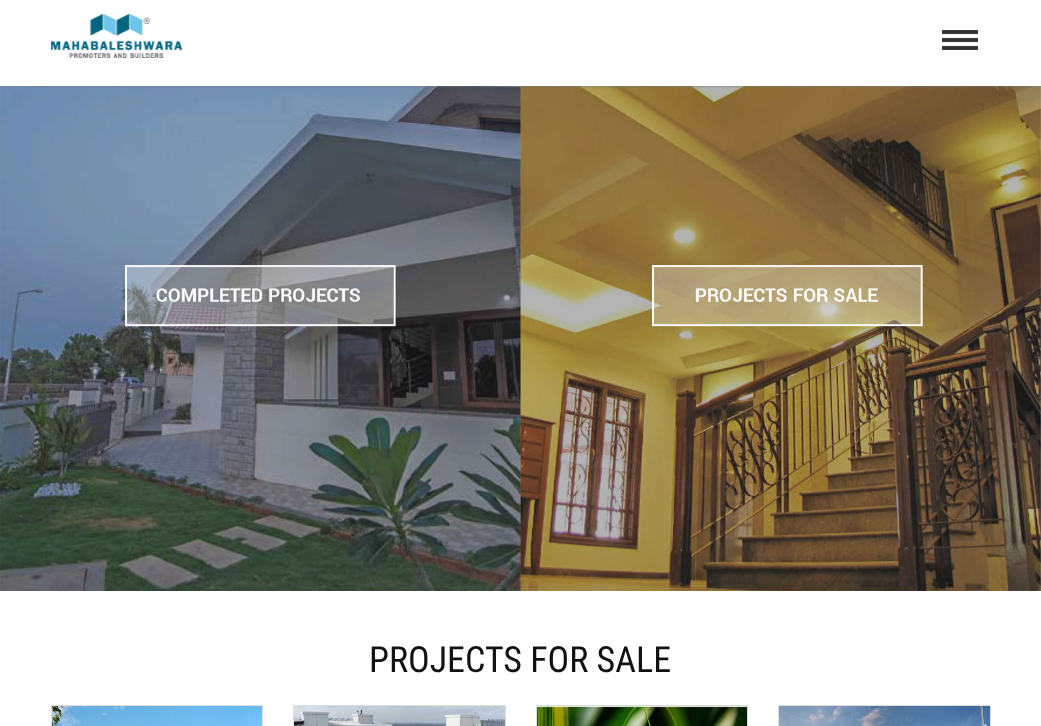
async function draw(canvas) {
	canvas.width = 1041;
	canvas.height = 726;
	const c = canvas.getContext('2d');
	c.miterLimit = 4;
	c.fontKerning = 'normal';
	async function loadImage(src) {
		const img = new Image();
		img.src = src;
		await img.decode();
		return img;
	}

	c.fillStyle = '#fff';
	c.fillRect(0, 0, 1041, 726);
	c.drawImage(await loadImage('img3.png'), 0, 86, 1041, 505);
	c.fillStyle = '#707b82';
	c.filter = 'blur(1.5px)';
	c.beginPath();
	c.rect(0, 0, 1041, 86);
	c.fill();
	c.filter = 'none';
	c.fillStyle = '#fff';
	c.fillRect(0, 0, 1041, 86);
	c.drawImage(await loadImage('img1.png'), 50, 14, 133, 44);
	c.drawImage(await loadImage('img2.png'), 942, 30, 36, 20);
	c.drawImage(await loadImage('img4.png'), 0, 590, 1041, 1);
	c.font = '36px Roboto Condensed';
	c.fillStyle = '#111';
	c.fillText('PROJECTS FOR SALE', 369, 672);
	c.strokeStyle = '#ddd';
	c.strokeRect(51.5, 705.5, 211, 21);
	c.drawImage(await loadImage('img5.png'), 52, 706, 210, 20);
	c.strokeRect(293.5, 705.5, 212, 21);
	c.drawImage(await loadImage('img6.png'), 294, 706, 211, 20);
	c.strokeRect(536.5, 705.5, 211, 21);
	c.drawImage(await loadImage('img7.png'), 537, 706, 210, 20);
	c.strokeRect(778.5, 705.5, 212, 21);
	c.drawImage(await loadImage('img8.png'), 779, 706, 211, 20);
}

draw(document.querySelector('canvas'));
